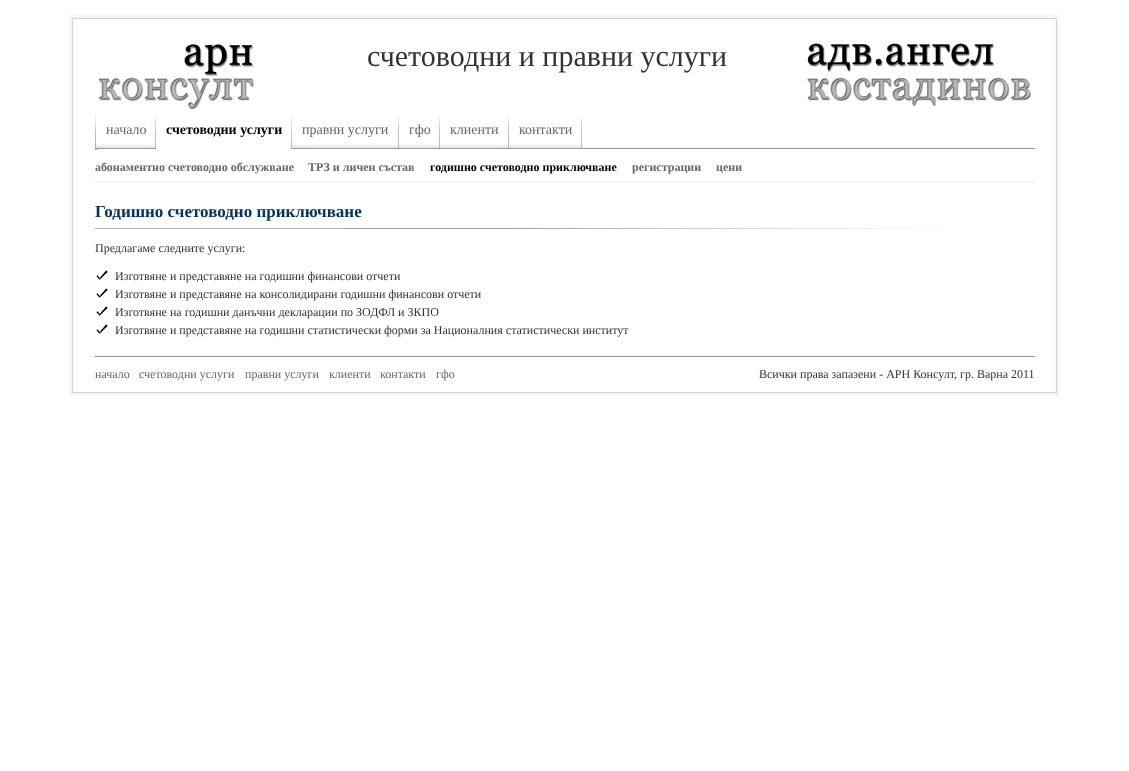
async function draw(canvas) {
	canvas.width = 1129;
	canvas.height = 771;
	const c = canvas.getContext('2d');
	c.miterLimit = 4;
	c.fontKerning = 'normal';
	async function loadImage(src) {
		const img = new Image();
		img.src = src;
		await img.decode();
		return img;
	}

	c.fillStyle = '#fff';
	c.fillRect(0, 0, 1129, 771);
	c.drawImage(await loadImage('img1.png'), 67, 15, 993, 382);
	c.drawImage(await loadImage('img2.png'), 72, 15, 985, 4);
	c.drawImage(await loadImage('img3.png'), 98, 44, 156, 66);
	c.font = '30px Liberation Serif';
	c.fillStyle = '#333';
	c.fillText('счетоводни и правни услуги', 367, 66);
	c.drawImage(await loadImage('img4.png'), 807, 43, 225, 64);
	c.fillStyle = '#999';
	c.fillRect(582, 148, 453, 1);
	c.drawImage(await loadImage('img5.png'), 95, 114, 2, 36);
	c.fillStyle = '#fff';
	c.fillRect(96, 114, 1, 3);
	c.drawImage(await loadImage('img6.png'), 96, 117, 60, 32);
	c.font = '14px Liberation Serif';
	c.fillStyle = '#666';
	c.fillText('начало', 106, 134);
	c.drawImage(await loadImage('img7.png'), 291, 116, 1, 33);
	c.font = 'bold 14px Liberation Serif';
	c.fillStyle = '#000';
	c.fillText('счетоводни услуги', 166, 134);
	c.drawImage(await loadImage('img8.png'), 292, 117, 107, 32);
	c.font = '14px Liberation Serif';
	c.fillStyle = '#666';
	c.fillText('правни услуги', 302, 134);
	c.drawImage(await loadImage('img9.png'), 399, 117, 41, 32);
	c.fillText('гфо', 409, 134);
	c.drawImage(await loadImage('img10.png'), 440, 117, 69, 32);
	c.fillText('клиенти', 450, 134);
	c.drawImage(await loadImage('img11.png'), 509, 117, 73, 32);
	c.fillText('контакти', 519, 134);
	c.fillStyle = '#ededed';
	c.fillRect(95, 181, 940, 1);
	c.font = 'bold 12px Liberation Serif';
	c.fillStyle = '#666';
	c.fillText('абонаментно счетоводно обслужване', 95, 171);
	c.fillText('ТРЗ и личен състав', 308, 171);
	c.fillStyle = '#000';
	c.fillText('годишно счетоводно приключване', 430, 171);
	c.fillStyle = '#666';
	c.fillText('регистрации', 632, 171);
	c.fillText('цени', 716, 171);
	c.drawImage(await loadImage('img12.png'), 95, 227, 848, 2);
	c.font = 'bold 17px Liberation Serif';
	c.fillStyle = '#036';
	c.fillText('Годишно счетоводно приключване', 95, 217);
	c.font = '12px Liberation Serif';
	c.fillStyle = '#333';
	c.fillText('Предлагаме следните услуги:', 95, 252);
	c.drawImage(await loadImage('img13.png'), 96, 270, 12, 10);
	c.fillText('Изготвяне и представяне на годишни финансови отчети', 115, 280);
	c.drawImage(await loadImage('img13.png'), 96, 288, 12, 10);
	c.fillText('Изготвяне и представяне на консолидирани годишни финансови отчети', 115, 298);
	c.drawImage(await loadImage('img13.png'), 96, 306, 12, 10);
	c.fillText('Изготвяне на годишни данъчни декларации по ЗОДФЛ и ЗКПО', 115, 316);
	c.drawImage(await loadImage('img13.png'), 96, 324, 12, 10);
	c.fillText('Изготвяне и представяне на годишни статистически форми за Националния статистически институт', 115, 334);
	c.fillStyle = '#999';
	c.fillRect(95, 356, 940, 1);
	c.fillStyle = '#666';
	for (const [text, x, y] of [
		['начало', 95, 378],
		['счетоводни услуги', 139, 378],
		['правни услуги', 245, 378],
		['клиенти', 329, 378],
		['контакти', 380, 378],
		['гфо', 436, 378],
	]) {
		c.fillText(text, x, y);
	}
	c.fillStyle = '#333';
	c.fillText('Всички права запазени - АРН Консулт, гр. Варна 2011', 759, 378);
	c.fillStyle = '#fff';
	c.fillRect(72, 396, 985, 1);
	c.drawImage(await loadImage('img14.png'), 72, 392, 985, 4);
}

draw(document.querySelector('canvas'));
